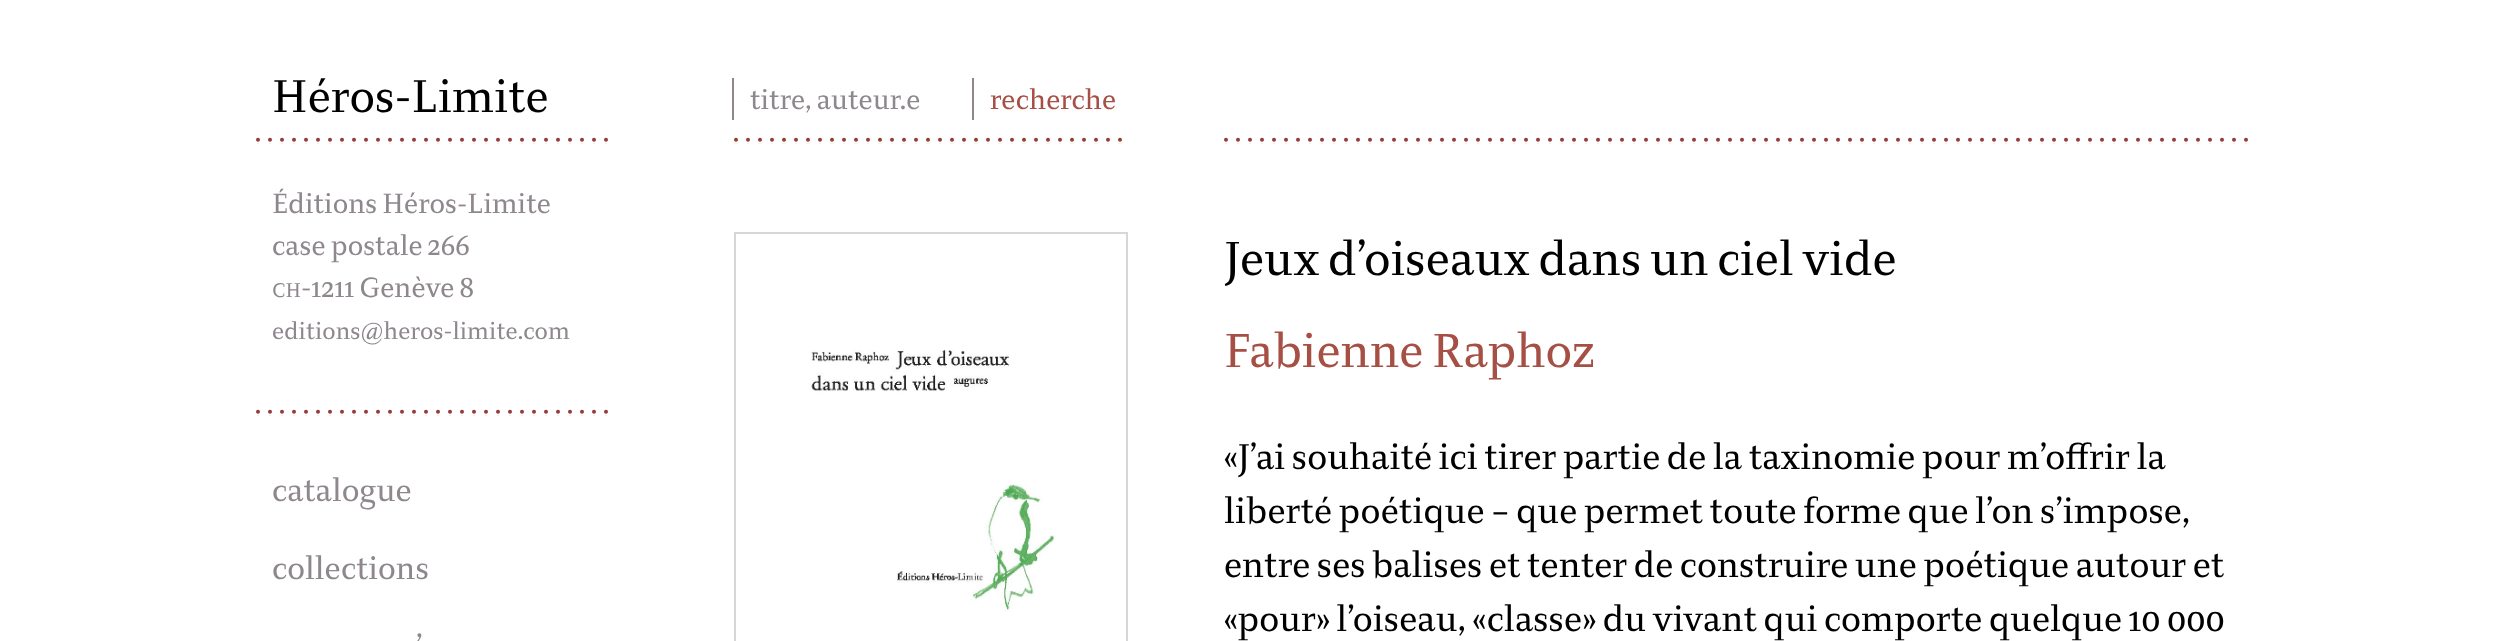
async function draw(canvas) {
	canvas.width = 2495;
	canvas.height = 641;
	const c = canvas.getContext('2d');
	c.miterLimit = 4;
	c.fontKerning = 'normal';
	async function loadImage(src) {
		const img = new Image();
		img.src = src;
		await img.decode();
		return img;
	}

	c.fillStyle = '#fff';
	c.fillRect(0, 0, 2495, 641);
	c.font = '46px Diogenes';
	c.fillStyle = '#000';
	c.fillText('Héros-Limite', 272, 112);
	c.fillStyle = '#8e888e';
	c.fillRect(972, 78, 2, 42);
	c.fillRect(732, 78, 2, 42);
	c.font = '28px Diogenes';
	c.fillText('titre, auteur.e', 750, 109);
	c.fillStyle = '#a64f44';
	c.fillText('recherche', 990, 109);
	c.drawImage(await loadImage('img1.png'), 256, 137, 352, 7);
	c.fillStyle = '#8e888e';
	c.fillText('Éditions Héros-Limite', 272, 213);
	c.fillText('case postale 266', 272, 255);
	c.font = '20px Diogenes';
	c.fillText('CH', 272, 297);
	c.font = '28px Diogenes';
	c.fillText('-1211 Genève 8', 301, 297);
	c.font = '24px Diogenes';
	c.fillText('editions@heros-limite.com', 272, 339);
	c.drawImage(await loadImage('img1.png'), 256, 409, 352, 7);
	c.font = '32px Diogenes';
	for (const [text, x, y] of [
		['catalogue', 272, 501],
		['collections', 272, 579],
		['’', 416, 657],
	]) {
		c.fillText(text, x, y);
	}
	c.drawImage(await loadImage('img2.png'), 734, 137, 388, 7);
	c.strokeStyle = '#d7d7d7';
	c.lineWidth = 2;
	c.strokeRect(735, 233, 392, 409);
	c.drawImage(await loadImage('img3.png'), 810, 350, 245, 262);
	c.drawImage(await loadImage('img4.png'), 1224, 137, 1024, 7);
	c.font = '48px Diogenes';
	c.fillStyle = '#000';
	c.fillText('Jeux d’oiseaux dans un ciel vide', 1224, 275);
	c.fillStyle = '#a64f44';
	c.fillText('Fabienne Raphoz', 1224, 367);
	c.font = '36px Diogenes';
	c.fillStyle = '#000';
	for (const [text, x, y] of [
		['«J’ai souhaité ici tirer partie de la taxinomie pour m’offrir la', 1224, 469],
		['liberté poétique – que permet toute forme que l’on s’impose,', 1224, 523],
		['entre ses balises et tenter de construire une poétique autour et', 1224, 577],
		['«pour» l’oiseau, «classe» du vivant qui comporte quelque 10 000', 1224, 631],
	]) {
		c.fillText(text, x, y);
	}
}

draw(document.querySelector('canvas'));
